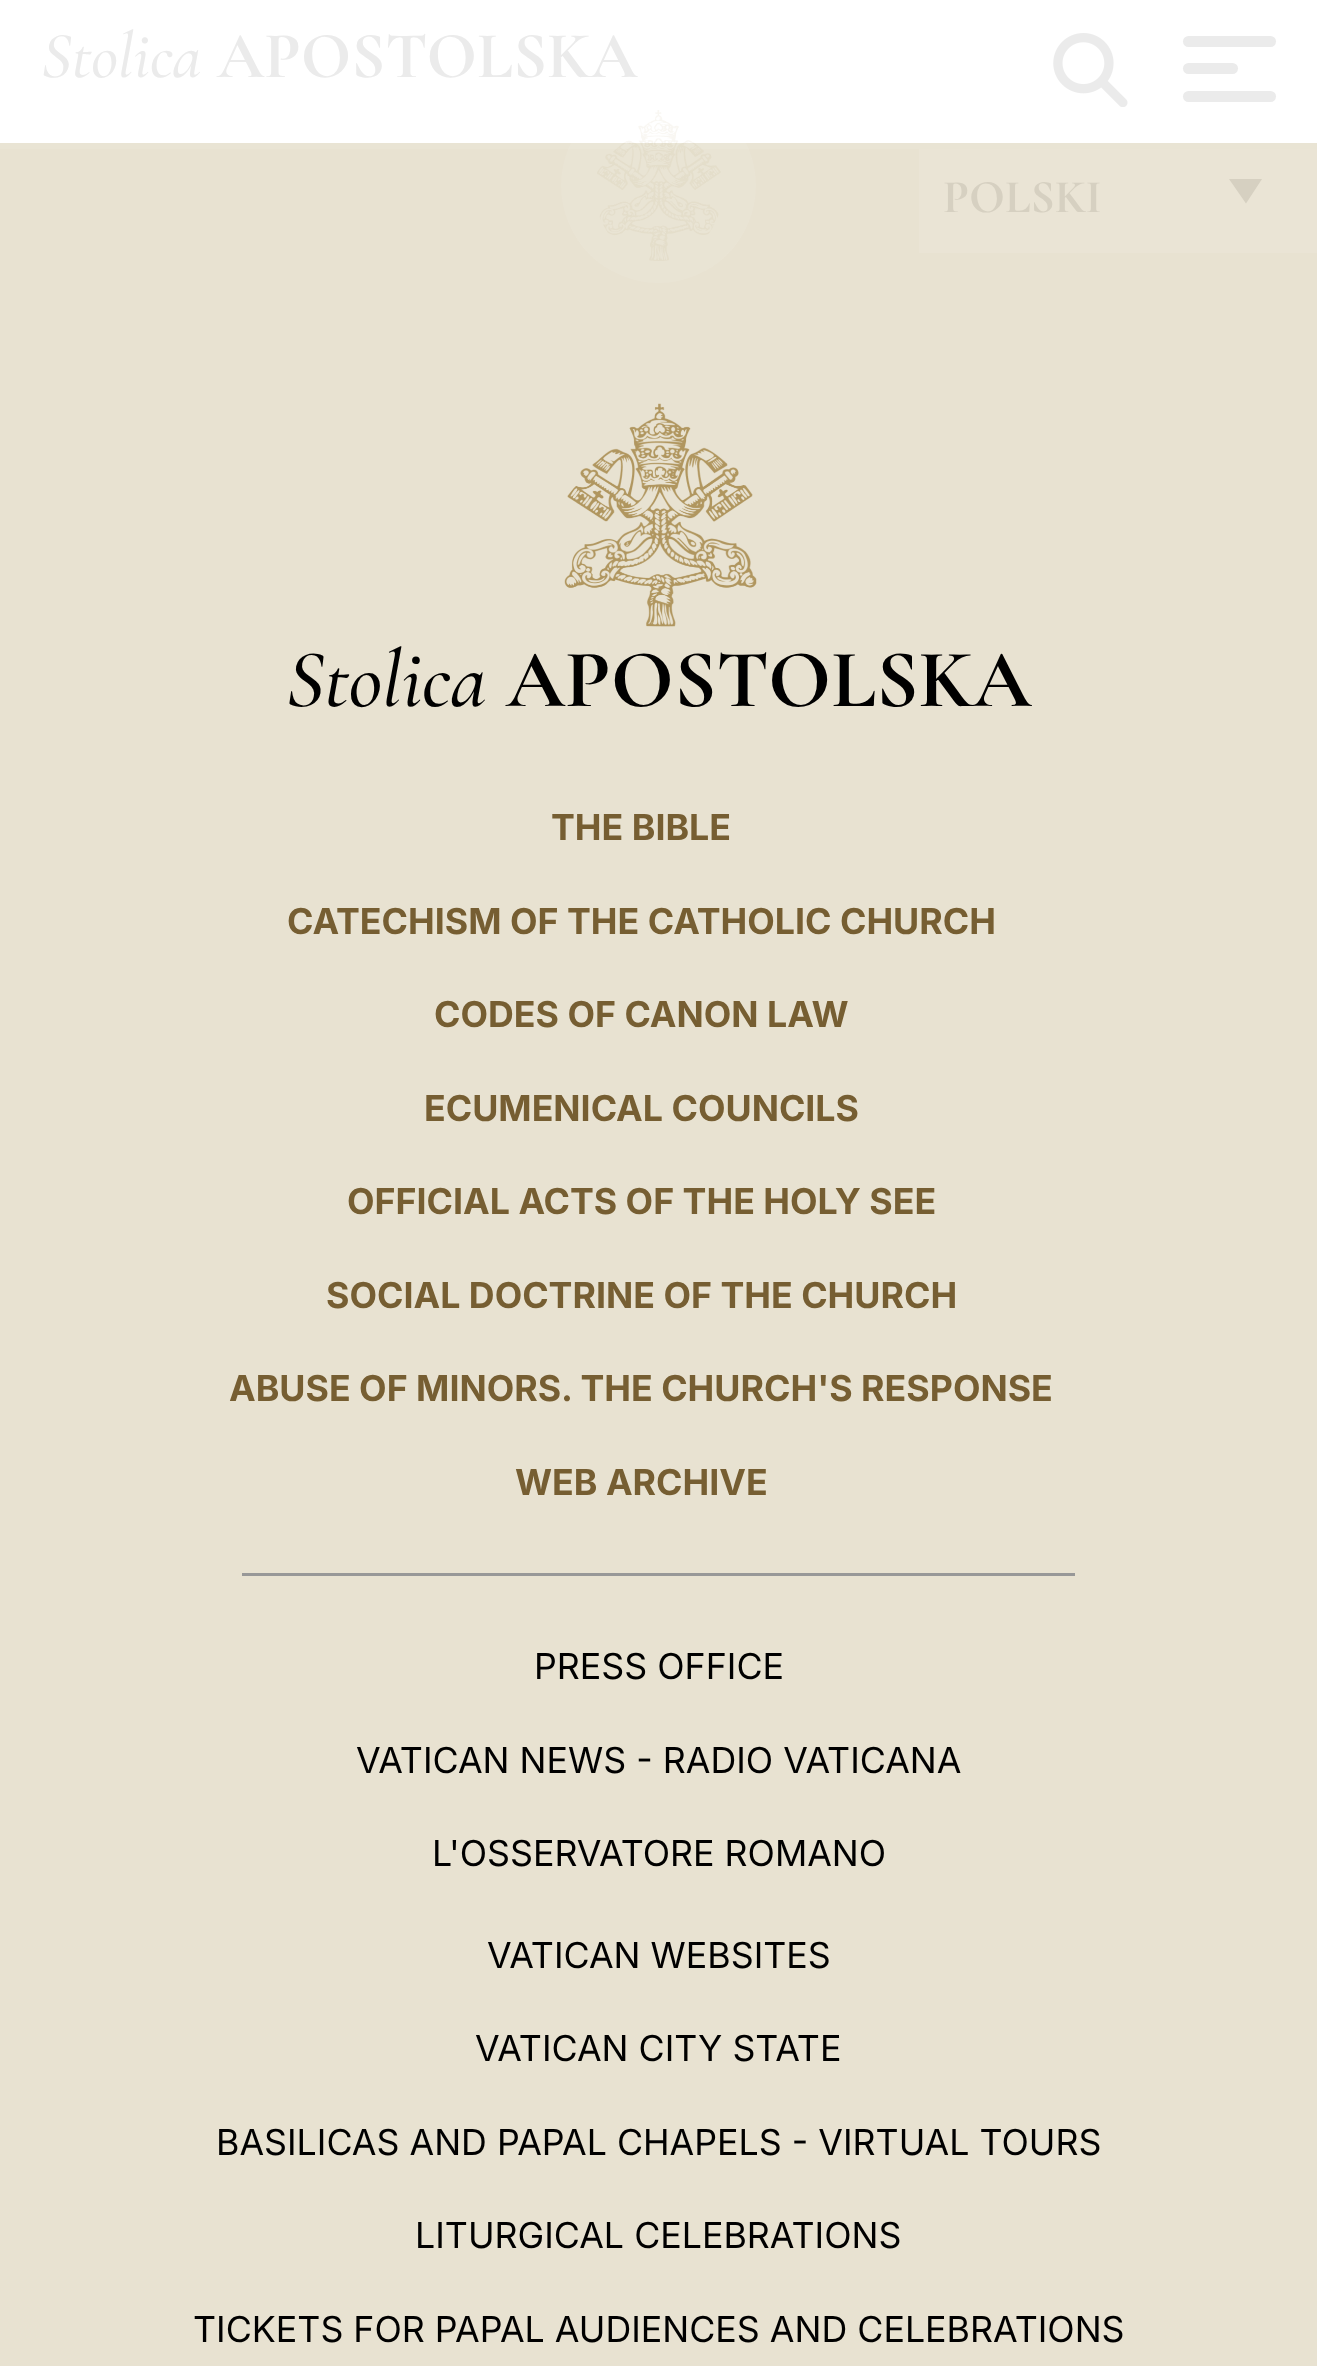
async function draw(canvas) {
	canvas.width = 1317;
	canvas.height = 2366;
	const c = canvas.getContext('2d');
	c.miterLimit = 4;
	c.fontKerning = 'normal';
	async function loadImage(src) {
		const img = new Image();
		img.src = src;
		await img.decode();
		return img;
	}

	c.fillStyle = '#e8e2d1';
	c.fillRect(0, 0, 1317, 2366);
	c.fillStyle = '#fff';
	c.fillRect(0, 0, 1317, 143);
	c.fillStyle = '#ffffff14';
	c.fillRect(0, 143, 1317, 6);
	c.font = 'italic 500 66px Cormorant Garamond';
	c.fillStyle = '#ebebeb';
	c.fillText('Stolica', 41, 77);
	c.font = 'bold 66px Cormorant Garamond';
	c.fillText('APOSTOLSKA', 217, 77);
	c.fillStyle = '#ffffff14';
	c.beginPath();
	c.arc(658.5, 185.5, 97.5, 0, 2 * Math.PI);
	c.fill();
	c.drawImage(await loadImage('img1.png'), 597, 110, 124, 151);
	c.drawImage(await loadImage('img2.png'), 1053, 33, 75, 74);
	c.fillStyle = '#ebebeb';
	c.beginPath();
	c.roundRect(1183, 36, 93, 11, 5.5);
	c.fill();
	c.beginPath();
	c.roundRect(1183, 63, 55, 11, 5.5);
	c.fill();
	c.beginPath();
	c.roundRect(1183, 91, 93, 11, 5.5);
	c.fill();
	c.fillStyle = '#eae4d5';
	c.fillRect(919, 149, 398, 104);
	c.font = 'bold 47px Cormorant Garamond';
	c.fillStyle = '#d6d0c1';
	c.fillText('POLSKI', 943, 212);
	c.beginPath();
	c.moveTo(1229, 179);
	c.lineTo(1262, 179);
	c.lineTo(1246, 203.5);
	c.closePath();
	c.fill();
	c.drawImage(await loadImage('img3.png'), 564, 403, 193, 224);
	c.font = 'italic 500 82.5px Cormorant Garamond';
	c.fillStyle = '#000';
	c.fillText('Stolica', 286, 706);
	c.font = 'bold 82.5px Cormorant Garamond';
	c.fillText('APOSTOLSKA', 506, 706);
	c.font = 'bold 35.75px Inter';
	c.fillStyle = '#765e32';
	for (const [text, x, y] of [
		['THE BIBLE', 551, 840],
		['CATECHISM OF THE CATHOLIC CHURCH', 287, 934],
		['CODES OF CANON LAW', 434, 1027],
		['ECUMENICAL COUNCILS', 424, 1121],
		['OFFICIAL ACTS OF THE HOLY SEE', 347, 1214],
		['SOCIAL DOCTRINE OF THE CHURCH', 326, 1308],
		['ABUSE OF MINORS. THE CHURCH\'S RESPONSE', 229, 1401],
		['WEB ARCHIVE', 515, 1495],
	]) {
		c.fillText(text, x, y);
	}
	c.fillStyle = '#989898';
	c.fillRect(242, 1573, 833, 3);
	c.font = '35.75px Inter';
	c.fillStyle = '#000';
	for (const [text, x, y] of [
		['PRESS OFFICE', 534, 1679],
		['VATICAN NEWS - RADIO VATICANA', 356, 1773],
		['L\'OSSERVATORE ROMANO', 432, 1866],
		['VATICAN WEBSITES', 487, 1968],
		['VATICAN CITY STATE', 475, 2061],
		['BASILICAS AND PAPAL CHAPELS - VIRTUAL TOURS', 216, 2155],
		['LITURGICAL CELEBRATIONS', 415, 2248],
		['TICKETS FOR PAPAL AUDIENCES AND CELEBRATIONS', 193, 2342],
	]) {
		c.fillText(text, x, y);
	}
}

draw(document.querySelector('canvas'));
